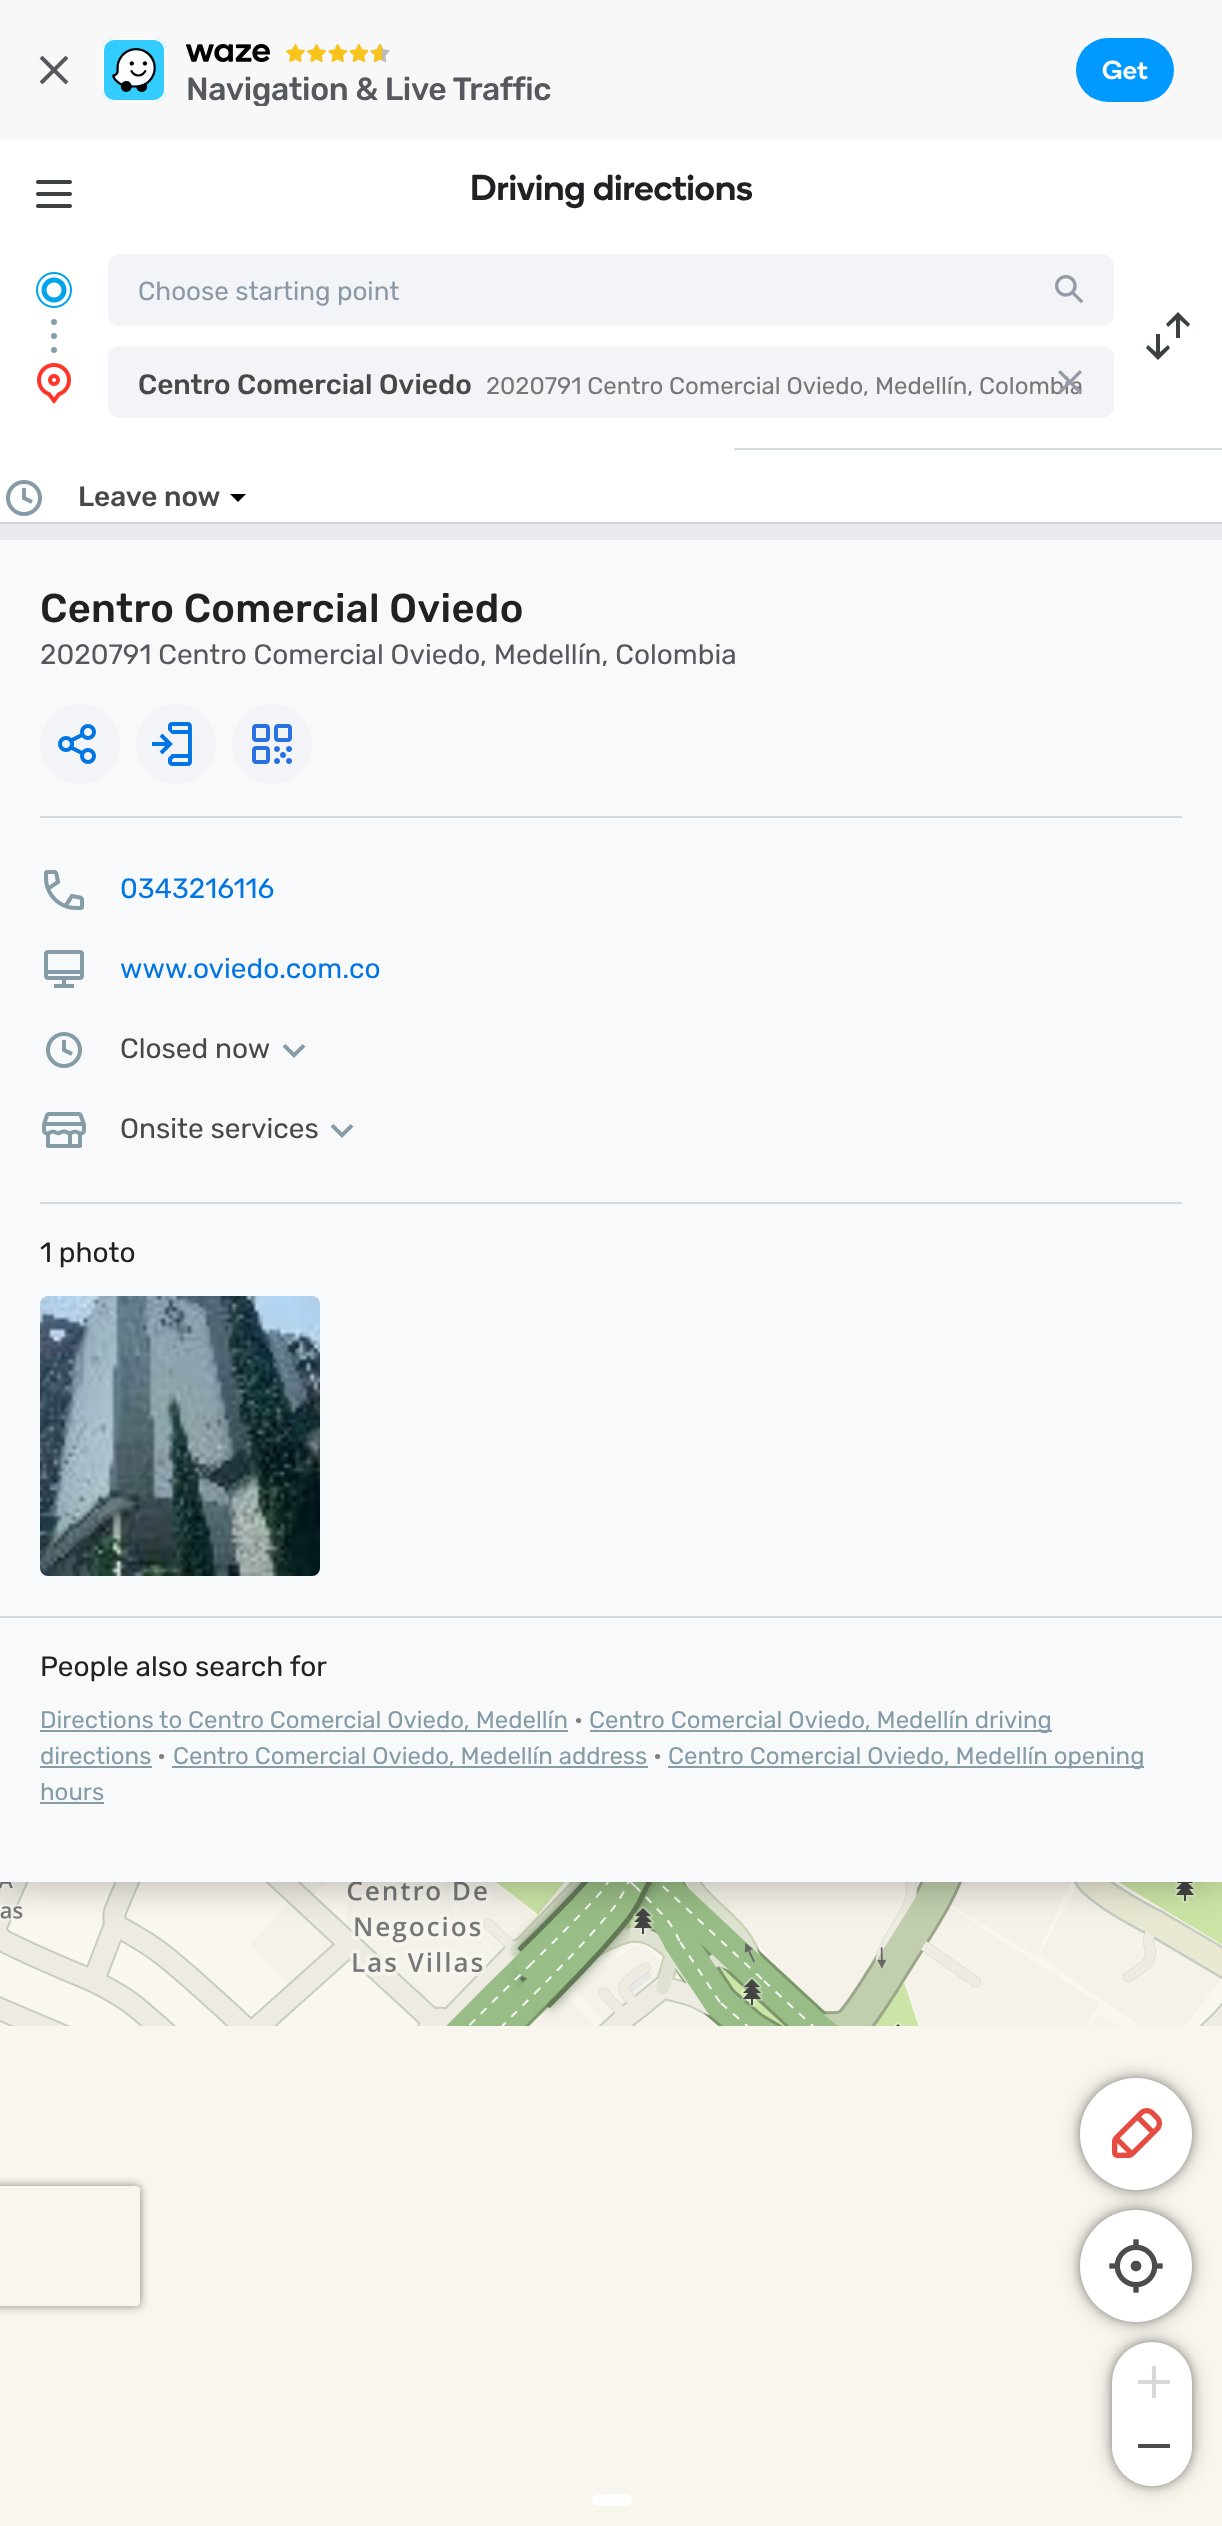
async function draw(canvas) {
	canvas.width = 1222;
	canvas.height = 2526;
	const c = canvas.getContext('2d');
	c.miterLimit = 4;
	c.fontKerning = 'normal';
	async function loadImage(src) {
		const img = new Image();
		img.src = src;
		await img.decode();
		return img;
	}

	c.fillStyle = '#f9f6ed';
	c.fillRect(0, 0, 1222, 2526);
	c.drawImage(await loadImage('img19.png'), 0, 1882, 118, 144);
	c.drawImage(await loadImage('img20.png'), 118, 1882, 512, 144);
	c.drawImage(await loadImage('img21.png'), 630, 1882, 512, 144);
	c.drawImage(await loadImage('img22.png'), 1142, 1882, 80, 144);
	c.fillStyle = '#0000004d';
	c.filter = 'blur(20px)';
	c.beginPath();
	c.rect(0, 140, 1222, 1742);
	c.fill();
	c.filter = 'none';
	c.fillStyle = '#f8f8f8';
	c.fillRect(0, 0, 1222, 140);
	c.drawImage(await loadImage('img1.png'), 39, 55, 30, 30);
	c.fillStyle = '#09f';
	c.beginPath();
	c.roundRect(1076, 38, 98, 64, 32);
	c.fill();
	c.letterSpacing = '0.5px';
	c.font = '500 26px "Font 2"';
	c.fillStyle = '#fff';
	c.fillText('Get', 1102, 79);
	c.fillStyle = '#3cf';
	c.beginPath();
	c.roundRect(102, 38, 64, 64, 12);
	c.fill();
	c.drawImage(await loadImage('img2.png'), 112, 48, 44, 44);
	c.beginPath();
	c.roundRect(103, 39, 62, 62, 11);
	c.strokeStyle = '#fff';
	c.lineWidth = 2;
	c.stroke();
	c.drawImage(await loadImage('img3.png'), 186, 44, 84, 18);
	c.drawImage(await loadImage('img4.png'), 286, 44, 104, 18);
	c.save();
	c.beginPath();
	c.rect(186, 74, 866, 32);
	c.clip();
	c.letterSpacing = '-0.4px';
	c.font = '500 32px Rubik';
	c.fillStyle = '#55595e';
	c.fillText('Navigation & Live Traffic', 186, 100);
	c.restore();
	c.fillStyle = '#fff';
	c.fillRect(0, 140, 1222, 382);
	c.drawImage(await loadImage('img5.png'), 36, 180, 36, 28);
	c.letterSpacing = '0px';
	c.font = '500 36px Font';
	c.fillStyle = '#202124';
	c.fillText('Driving directions', 470, 200);
	c.fillStyle = '#869ca7';
	c.beginPath();
	c.arc(54, 322, 3, 0, 2 * Math.PI);
	c.fill();
	c.beginPath();
	c.arc(54, 336, 3, 0, 2 * Math.PI);
	c.fill();
	c.beginPath();
	c.arc(54, 350, 3, 0, 2 * Math.PI);
	c.fill();
	c.drawImage(await loadImage('img6.png'), 36, 272, 36, 36);
	c.fillStyle = '#f2f4f7';
	c.beginPath();
	c.roundRect(108, 254, 1006, 72, 12);
	c.fill();
	c.font = '26px Rubik';
	c.fillStyle = '#8b98a5';
	c.fillText('Choose starting point', 138, 300);
	c.drawImage(await loadImage('img7.png'), 1055, 275, 29, 29);
	c.fillStyle = '#3b4043';
	c.beginPath();
	c.moveTo(1180, 320);
	c.lineTo(1180, 338);
	c.lineTo(1176, 338);
	c.lineTo(1176, 320);
	c.lineTo(1168, 327);
	c.lineTo(1166, 324);
	c.lineTo(1178, 312);
	c.lineTo(1190, 324);
	c.lineTo(1188, 327);
	c.closePath();
	c.moveTo(1160, 352);
	c.lineTo(1168, 345);
	c.lineTo(1170, 348);
	c.lineTo(1158, 360);
	c.lineTo(1146, 348);
	c.lineTo(1148, 345);
	c.lineTo(1156, 352);
	c.lineTo(1156, 334);
	c.lineTo(1160, 334);
	c.closePath();
	c.fill();
	c.drawImage(await loadImage('img8.png'), 37, 363, 34, 41);
	c.fillStyle = '#f2f4f7';
	c.beginPath();
	c.roundRect(108, 346, 1006, 72, 12);
	c.fill();
	c.font = '24px Rubik';
	c.fillStyle = '#777';
	c.fillText('2020791 Centro Comercial Oviedo, Medellín, Colombia', 486, 394);
	c.drawImage(await loadImage('img9.png'), 1058, 370, 24, 24);
	c.font = '500 28px Rubik';
	c.fillStyle = '#484848';
	c.fillText('Centro Comercial Oviedo', 138, 394);
	c.fillStyle = '#d3dae0';
	c.fillRect(734, 448, 488, 2);
	c.drawImage(await loadImage('img10.png'), 6, 480, 36, 36);
	c.fillStyle = '#484848';
	c.fillText('Leave now', 78, 506);
	c.fillStyle = '#000';
	c.beginPath();
	c.moveTo(230, 494);
	c.lineTo(246, 494);
	c.lineTo(238, 502);
	c.closePath();
	c.fill();
	for (const [x, y, w, h, color] of [
		[0, 522, 1222, 2, '#d5d7db'],
		[0, 540, 1222, 1076, '#f8f9fa'],
		[0, 524, 1222, 16, '#e8eaed'],
		[40, 816, 1142, 2, '#d3dae0'],
	]) {
		c.fillStyle = color;
		c.fillRect(x, y, w, h);
	}
	c.letterSpacing = '0.3px';
	c.font = '500 40px Rubik';
	c.fillStyle = '#202124';
	c.fillText('Centro Comercial Oviedo', 40, 622);
	c.letterSpacing = '0px';
	c.font = '28px Rubik';
	c.fillStyle = '#55595e';
	c.fillText('2020791 Centro Comercial Oviedo, Medellín, Colombia', 40, 664);
	c.fillStyle = '#f2f4f7';
	c.beginPath();
	c.arc(80, 744, 40, 0, 2 * Math.PI);
	c.fill();
	c.drawImage(await loadImage('img11.png'), 58, 724, 38, 40);
	c.beginPath();
	c.arc(176, 744, 40, 0, 2 * Math.PI);
	c.fill();
	c.drawImage(await loadImage('img12.png'), 152, 722, 40, 44);
	c.beginPath();
	c.arc(272, 744, 40, 0, 2 * Math.PI);
	c.fill();
	c.drawImage(await loadImage('img13.png'), 252, 724, 40, 40);
	c.fillStyle = '#d3dae0';
	c.fillRect(40, 1202, 1142, 2);
	c.drawImage(await loadImage('img14.png'), 44, 870, 40, 40);
	c.fillStyle = '#0075e3';
	c.fillText('0343216116', 120, 898);
	c.drawImage(await loadImage('img15.png'), 44, 950, 40, 38);
	c.fillText('www.oviedo.com.co', 120, 978);
	c.drawImage(await loadImage('img16.png'), 46, 1032, 36, 36);
	c.fillStyle = '#484848';
	c.fillText('Closed now', 120, 1058);
	c.fillStyle = '#859ba6';
	c.beginPath();
	c.moveTo(302.5, 1044);
	c.lineTo(305.5, 1046.5);
	c.lineTo(294, 1058);
	c.lineTo(282.5, 1046.5);
	c.lineTo(285.5, 1044);
	c.lineTo(294, 1052.5);
	c.closePath();
	c.fill();
	c.drawImage(await loadImage('img17.png'), 42, 1112, 44, 36);
	c.fillStyle = '#484848';
	c.fillText('Onsite services', 120, 1138);
	c.fillStyle = '#859ba6';
	c.beginPath();
	c.moveTo(350.5, 1124);
	c.lineTo(353.5, 1126.5);
	c.lineTo(342, 1138);
	c.lineTo(330.5, 1126.5);
	c.lineTo(333.5, 1124);
	c.lineTo(342, 1132.5);
	c.closePath();
	c.fill();
	c.fillStyle = '#202124';
	c.fillText('1 photo', 40, 1262);
	c.drawImage(await loadImage('img18.png'), 40, 1296, 280, 280);
	c.fillStyle = '#f8f9fa';
	c.fillRect(0, 1618, 1222, 264);
	c.fillStyle = '#d3dae0';
	c.fillRect(0, 1616, 1222, 2);
	c.fillStyle = '#202124';
	c.fillText('People also search for', 40, 1676);
	c.font = '24px Rubik';
	c.fillStyle = '#859ba6';
	c.fillText('Directions to Centro Comercial Oviedo, Medellín', 40, 1728);
	c.fillRect(40, 1730, 528, 2);
	c.fillStyle = '#818181';
	c.fillText('•', 574, 1728);
	c.fillStyle = '#859ba6';
	c.fillRect(590, 1730, 462, 2);
	c.fillText('Centro Comercial Oviedo, Medellín driving', 589, 1728);
	c.fillText('directions', 40, 1764);
	c.fillRect(40, 1766, 112, 2);
	c.fillStyle = '#818181';
	c.fillText('•', 157, 1764);
	c.fillStyle = '#859ba6';
	c.fillText('Centro Comercial Oviedo, Medellín address', 173, 1764);
	c.fillRect(172, 1766, 476, 2);
	c.fillStyle = '#818181';
	c.fillText('•', 653, 1764);
	c.fillStyle = '#859ba6';
	c.fillRect(668, 1766, 476, 2);
	c.fillText('Centro Comercial Oviedo, Medellín opening', 668, 1764);
	c.fillText('hours', 40, 1800);
	c.fillRect(40, 1802, 64, 2);
	c.fillStyle = '#0000004d';
	c.filter = 'blur(10px)';
	c.beginPath();
	c.roundRect(1080, 2078, 112, 112, 56);
	c.fill();
	c.filter = 'none';
	c.filter = 'blur(4px)';
	c.beginPath();
	c.roundRect(1080, 2078, 112, 112, 56);
	c.fill();
	c.filter = 'none';
	c.fillStyle = '#fff';
	c.beginPath();
	c.arc(1136, 2134, 56, 0, 2 * Math.PI);
	c.fill();
	c.drawImage(await loadImage('img23.png'), 1112, 2108, 50, 51);
	c.fillStyle = '#0000004d';
	c.filter = 'blur(10px)';
	c.beginPath();
	c.roundRect(1080, 2210, 112, 112, 56);
	c.fill();
	c.filter = 'none';
	c.filter = 'blur(4px)';
	c.beginPath();
	c.roundRect(1080, 2210, 112, 112, 56);
	c.fill();
	c.filter = 'none';
	c.fillStyle = '#fff';
	c.beginPath();
	c.arc(1136, 2266, 56, 0, 2 * Math.PI);
	c.fill();
	c.drawImage(await loadImage('img24.png'), 1109, 2239, 54, 54);
	c.fillStyle = '#fefefd';
	c.beginPath();
	c.roundRect(592, 2494, 40, 12, 6);
	c.fill();
	c.fillStyle = '#0000004d';
	c.filter = 'blur(10px)';
	c.beginPath();
	c.roundRect(1112, 2342, 80, 144, 40);
	c.fill();
	c.filter = 'none';
	c.filter = 'blur(4px)';
	c.beginPath();
	c.roundRect(1112, 2342, 80, 144, 40);
	c.fill();
	c.filter = 'none';
	c.fillStyle = '#fff';
	c.beginPath();
	c.roundRect(1112, 2342, 80, 144, 40);
	c.fill();
	c.drawImage(await loadImage('img25.png'), 1138, 2366, 32, 32);
	c.beginPath();
	c.roundRect(1112, 2414, 80, 72, [0, 0, 40, 40]);
	c.fill();
	c.fillStyle = '#4c4c4c';
	c.fillRect(1138, 2444, 32, 4);
	c.save();
	c.beginPath();
	c.moveTo(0, 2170);
	c.lineTo(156, 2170);
	c.lineTo(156, 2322);
	c.lineTo(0, 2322);
	c.closePath();
	c.moveTo(-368, 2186);
	c.lineTo(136, 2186);
	c.bezierCurveTo(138, 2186, 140, 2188, 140, 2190);
	c.lineTo(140, 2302);
	c.bezierCurveTo(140, 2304, 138, 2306, 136, 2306);
	c.lineTo(-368, 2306);
	c.bezierCurveTo(-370, 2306, -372, 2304, -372, 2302);
	c.lineTo(-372, 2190);
	c.bezierCurveTo(-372, 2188, -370, 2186, -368, 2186);
	c.closePath();
	c.clip('evenodd');
	c.fillStyle = '#808080';
	c.filter = 'blur(5px)';
	c.beginPath();
	c.roundRect(-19, 2186, 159, 120, 4);
	c.fill();
	c.filter = 'none';
	c.restore();
}

draw(document.querySelector('canvas'));
